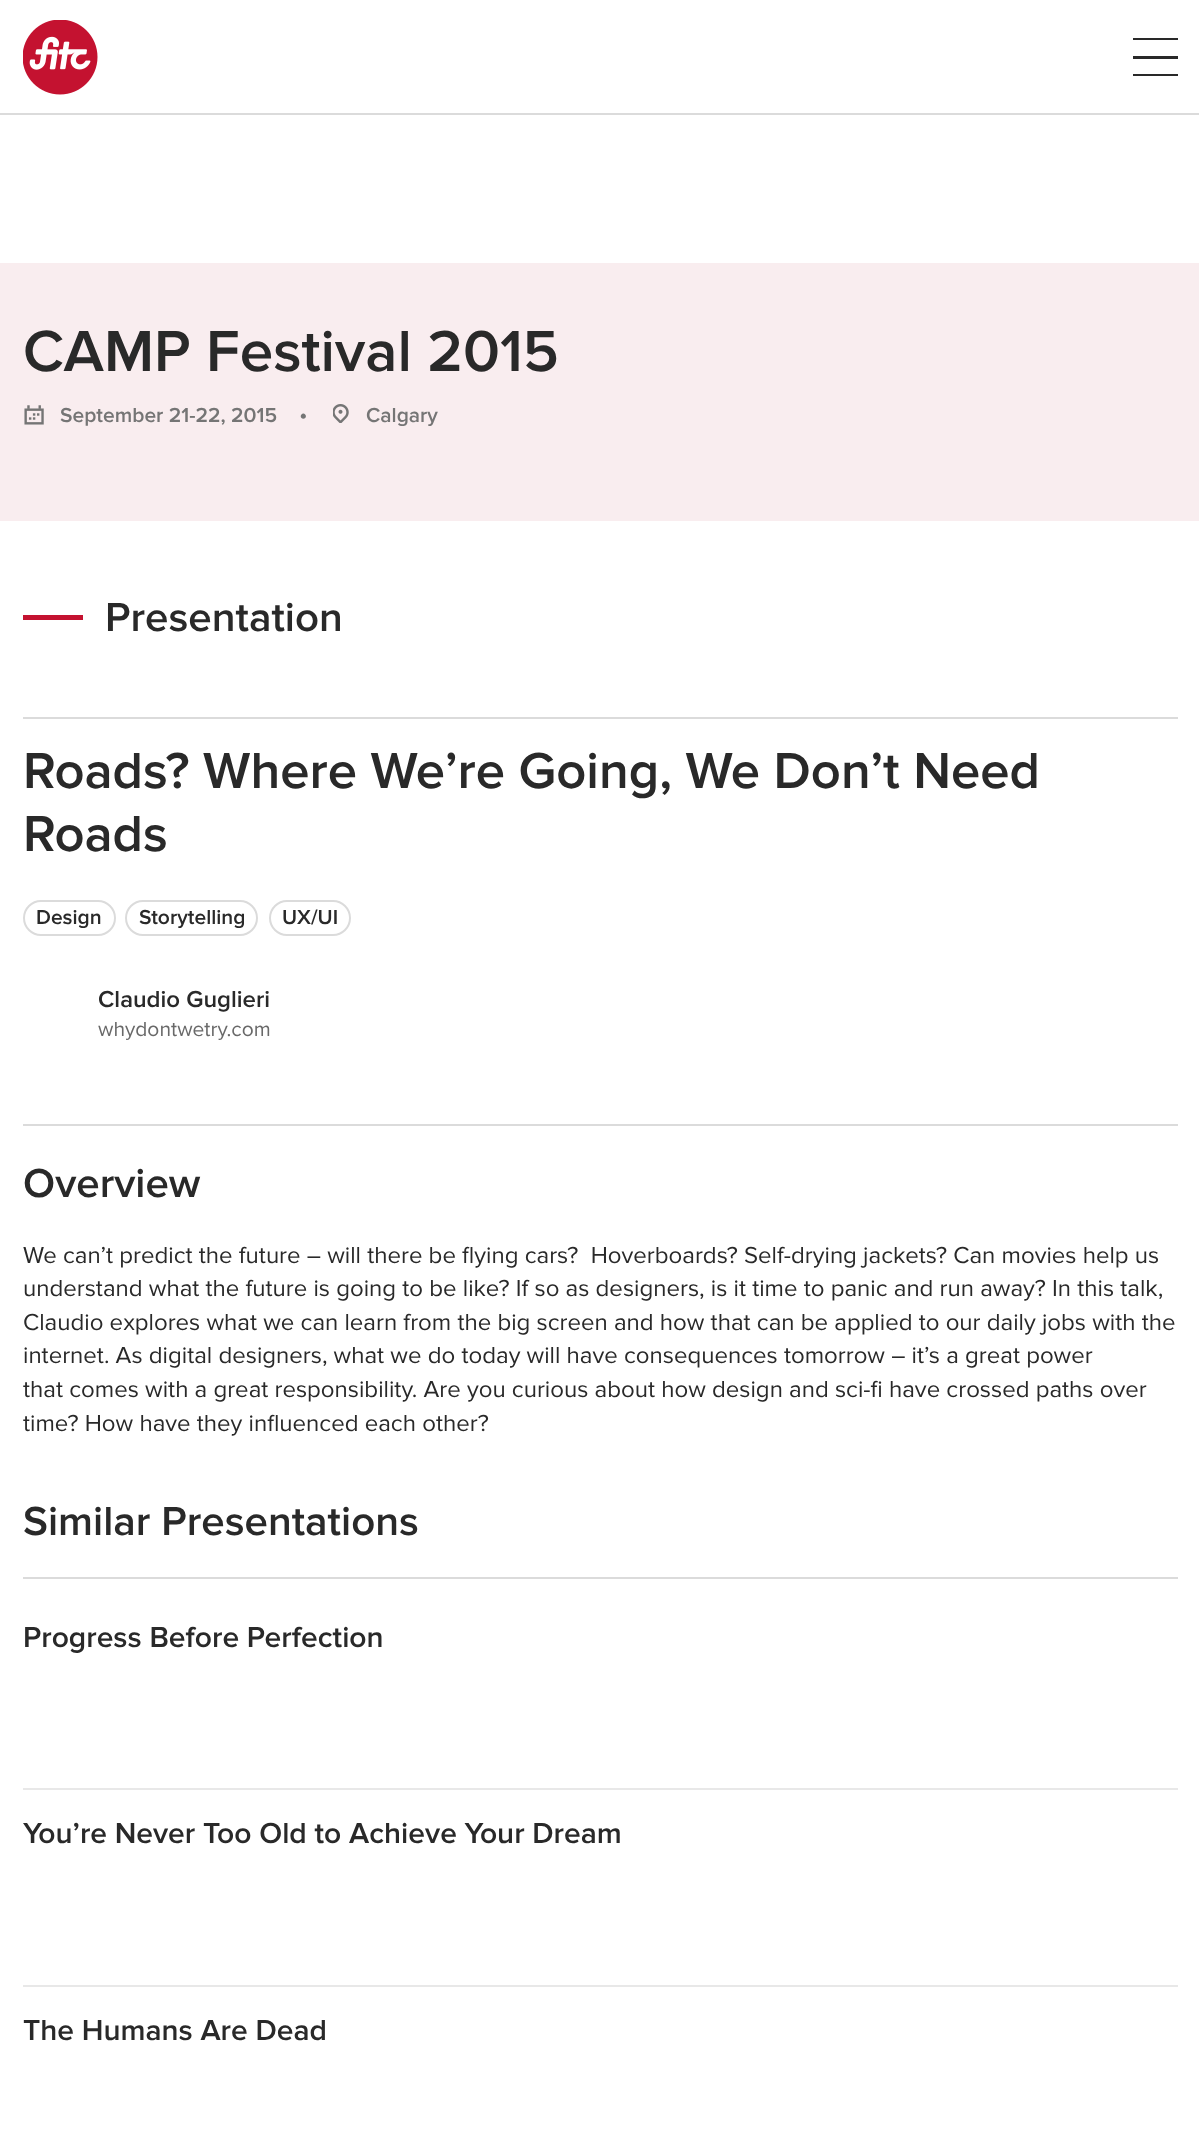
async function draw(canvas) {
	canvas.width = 1199;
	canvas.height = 2149;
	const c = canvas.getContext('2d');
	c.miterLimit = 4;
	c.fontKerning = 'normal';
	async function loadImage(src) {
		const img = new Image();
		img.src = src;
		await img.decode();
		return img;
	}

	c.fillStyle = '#fff';
	c.fillRect(0, 0, 1199, 2149);
	c.fillStyle = '#dbdbdb';
	c.fillRect(0, 113, 1199, 2);
	c.drawImage(await loadImage('img1.png'), 23, 20, 75, 75);
	for (const [x, y, w, h, color] of [
		[1133, 74, 45, 2, '#292929'],
		[1133, 56, 45, 3, '#292929'],
		[1133, 38, 45, 2, '#292929'],
		[0, 263, 1199, 258, '#f9edef'],
	]) {
		c.fillStyle = color;
		c.fillRect(x, y, w, h);
	}
	c.font = '600 60px Proxima Nova';
	c.fillStyle = '#292929';
	c.fillText('CAMP Festival 2015', 23, 371);
	c.drawImage(await loadImage('img2.png'), 24, 405, 20, 20);
	c.font = '600 21px Proxima Nova';
	c.fillStyle = '#757575';
	c.fillText('September 21-22, 2015', 60, 422);
	c.font = '24px Proxima Nova';
	c.fillText('•', 299, 422);
	c.drawImage(await loadImage('img3.png'), 333, 404, 16, 19);
	c.font = '600 21px Proxima Nova';
	c.fillText('Calgary', 366, 422);
	c.fillStyle = '#c41230';
	c.fillRect(23, 615, 60, 5);
	c.font = '600 42px Proxima Nova';
	c.fillStyle = '#292929';
	c.fillText('Presentation', 105, 631);
	c.fillStyle = '#dbdbdb';
	c.fillRect(23, 717, 1155, 2);
	c.font = '600 52.5px Proxima Nova';
	c.fillStyle = '#292929';
	c.fillText('Roads? Where We’re Going, We Don’t Need', 23, 788);
	c.fillText('Roads', 23, 851);
	c.beginPath();
	c.roundRect(24, 901, 91, 34, 17);
	c.strokeStyle = '#dbdbdb';
	c.lineWidth = 2;
	c.stroke();
	c.font = '600 21px Proxima Nova';
	c.fillText('Design', 36, 924);
	c.beginPath();
	c.roundRect(126, 901, 131, 34, 17);
	c.stroke();
	c.fillText('Storytelling', 139, 924);
	c.beginPath();
	c.roundRect(270, 901, 80, 34, 17);
	c.stroke();
	c.fillText('UX/UI', 282, 924);
	c.fillStyle = '#dbdbdb';
	c.fillRect(23, 1124, 1155, 2);
	c.font = '600 24px Proxima Nova';
	c.fillStyle = '#292929';
	c.fillText('Claudio Guglieri', 98, 1007);
	c.font = '21px Proxima Nova';
	c.fillStyle = '#696969';
	c.fillText('whydontwetry.com', 98, 1036);
	c.font = '600 42px Proxima Nova';
	c.fillStyle = '#292929';
	c.fillText('Overview', 23, 1197);
	c.font = '24px Proxima Nova';
	for (const [text, x, y] of [
		['We can’t predict the future – will there be flying cars?  Hoverboards? Self-drying jackets? Can movies help us', 23, 1263],
		['understand what the future is going to be like? If so as designers, is it time to panic and run away? In this talk,', 23, 1296],
		['Claudio explores what we can learn from the big screen and how that can be applied to our daily jobs with the', 23, 1330],
		['internet. As digital designers, what we do today will have consequences tomorrow – it’s a great power', 23, 1363],
		['that comes with a great responsibility. Are you curious about how design and sci-fi have crossed paths over', 23, 1397],
		['time? How have they influenced each other?', 23, 1431],
	]) {
		c.fillText(text, x, y);
	}
	c.font = '600 42px Proxima Nova';
	c.fillText('Similar Presentations', 23, 1535);
	c.fillStyle = '#dbdbdb';
	c.fillRect(23, 1577, 1155, 2);
	c.fillStyle = '#e8e8e8';
	c.fillRect(23, 1788, 1155, 2);
	c.font = '600 30px Proxima Nova';
	c.fillStyle = '#292929';
	c.fillText('Progress Before Perfection', 23, 1647);
	c.fillStyle = '#e8e8e8';
	c.fillRect(23, 1985, 1155, 2);
	c.fillStyle = '#292929';
	c.fillText('You’re Never Too Old to Achieve Your Dream', 23, 1843);
	c.fillText('The Humans Are Dead', 23, 2040);
}

draw(document.querySelector('canvas'));
